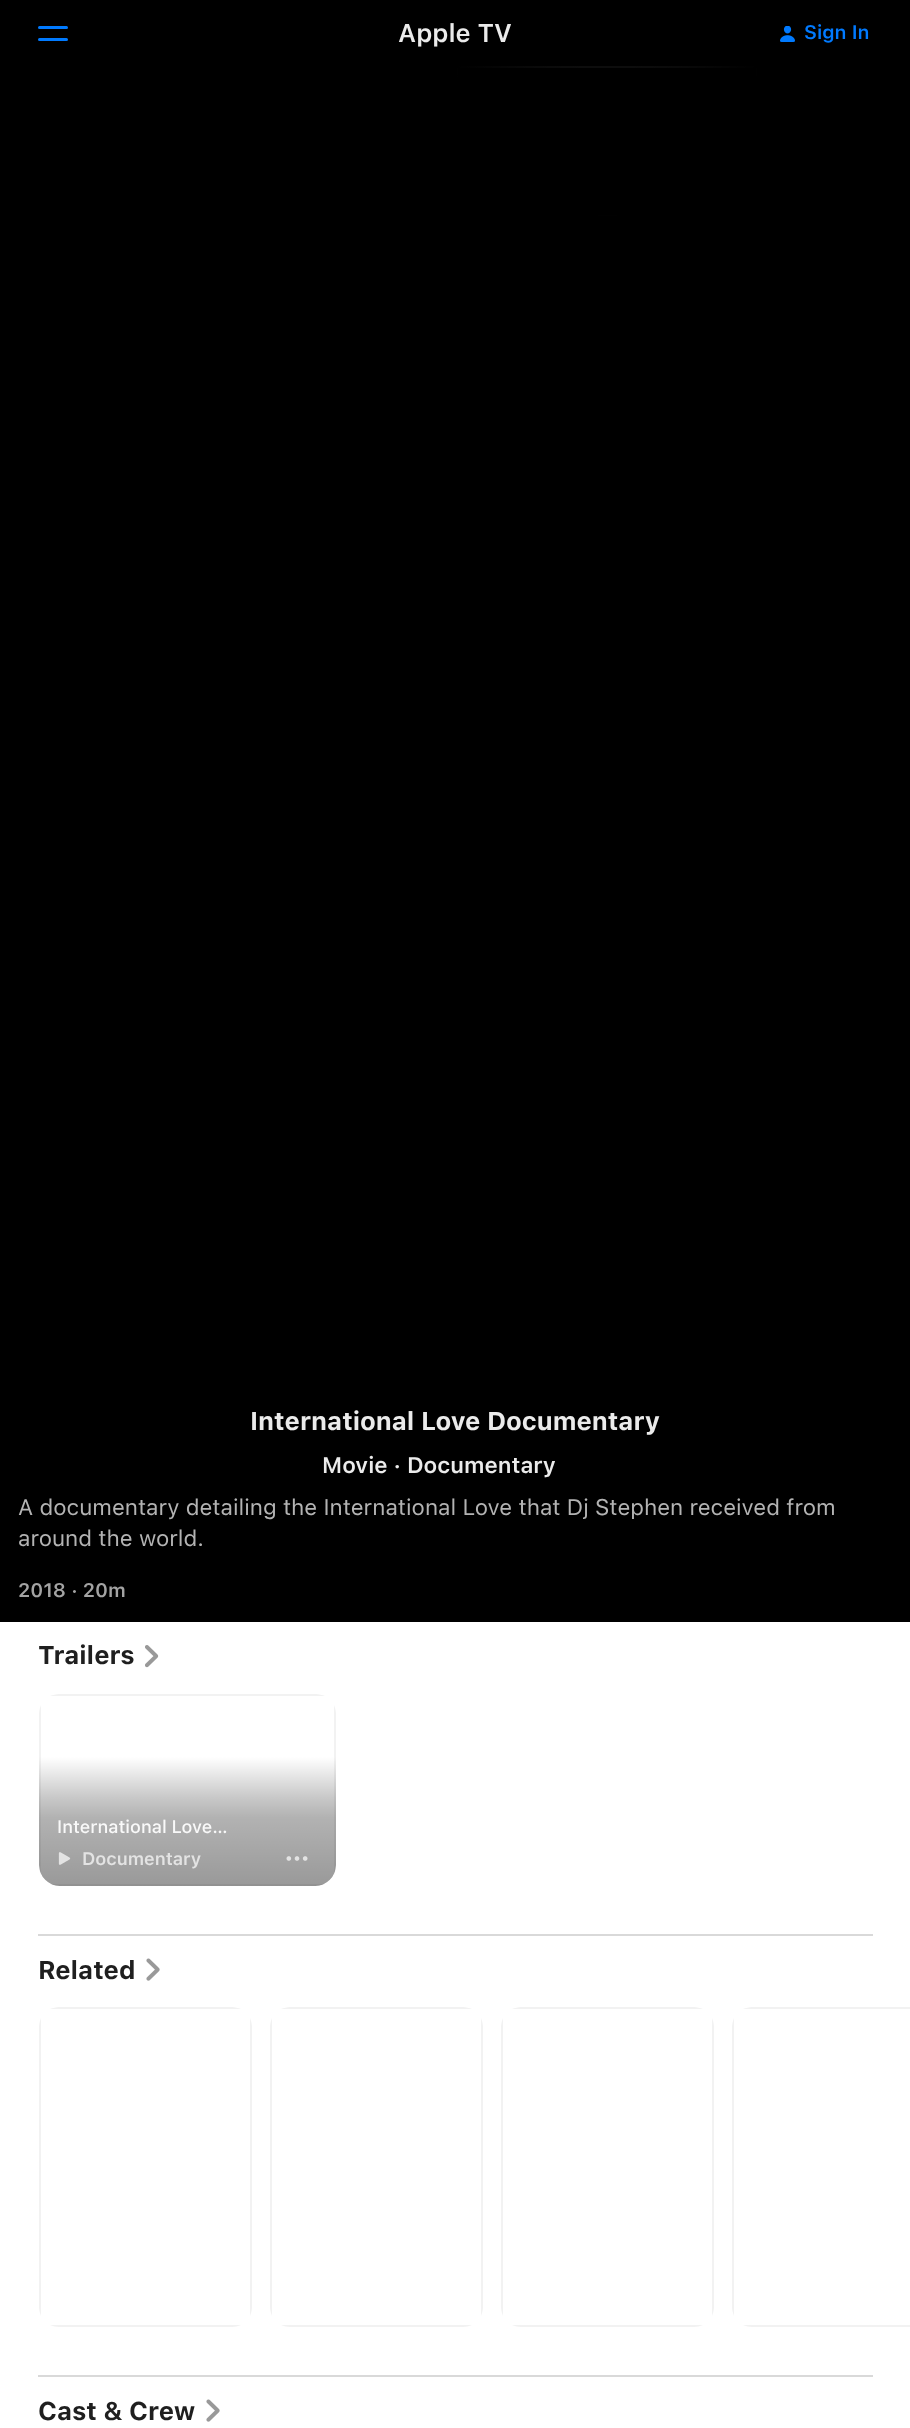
async function draw(canvas) {
	canvas.width = 910;
	canvas.height = 2428;
	const c = canvas.getContext('2d');
	c.miterLimit = 4;
	c.fontKerning = 'normal';
	async function loadImage(src) {
		const img = new Image();
		img.src = src;
		await img.decode();
		return img;
	}
	let gradient;

	c.fillStyle = '#fff';
	c.fillRect(0, 0, 910, 2428);
	c.fillStyle = '#000';
	c.fillRect(0, 0, 910, 66);
	c.fillStyle = '#007aff';
	c.beginPath();
	c.roundRect(38, 26, 30, 3, 1.5);
	c.fill();
	c.beginPath();
	c.roundRect(38, 38, 30, 3, 1.5);
	c.fill();
	c.font = '600 25.5px SF';
	c.fillStyle = '#ebebeb';
	c.fillText('Apple TV', 398, 42);
	c.drawImage(await loadImage('img1.png'), 780, 26, 15, 16);
	c.font = '600 19.5px SF';
	c.fillStyle = '#007aff';
	c.fillText('Sign In', 804, 39);
	c.fillStyle = '#000';
	c.fillRect(458, 68, 298, 147);
	c.save();
	c.beginPath();
	c.rect(0, 66, 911, 1556);
	c.clip();
	c.strokeStyle = '#0d0d0d';
	c.lineWidth = 2;
	c.strokeRect(1, 67, 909, 1617);
	c.restore();
	gradient = c.createRadialGradient(607, 66, 0, 607, 66, 150);
	gradient.addColorStop(0, '#00000000');
	gradient.addColorStop(0.19, '#0000000a');
	gradient.addColorStop(0.36, '#00000026');
	gradient.addColorStop(0.51, '#0000004d');
	gradient.addColorStop(0.53, '#00000054');
	gradient.addColorStop(0.65, '#0000007d');
	gradient.addColorStop(0.77, '#000000ab');
	gradient.addColorStop(0.89, '#000000d9');
	gradient.addColorStop(1, '#000');
	c.fillStyle = gradient;
	c.fillRect(0, 66, 910, 1556);
	c.font = 'bold 25.5px SF';
	c.fillStyle = '#ebebeb';
	c.fillText('International Love Documentary', 250, 1430);
	c.font = '600 22.5px SF';
	c.fillText('Movie · Documentary', 322, 1473);
	c.font = '22.5px SF';
	c.fillStyle = '#b3b3b3';
	c.fillText('A documentary detailing the International Love that Dj Stephen received from', 18, 1515);
	c.fillText('around the world.', 18, 1546);
	c.font = '600 19.5px SF';
	c.fillStyle = '#a3a3a3';
	c.fillText('2018 · 20m', 18, 1597);
	c.font = 'bold 25.5px SF';
	c.fillStyle = '#1f1f1f';
	c.fillText('Trailers', 38, 1664);
	c.drawImage(await loadImage('img2.png'), 145, 1645, 14, 23);
	c.fillStyle = '#f2f2f2';
	c.beginPath();
	c.moveTo(39, 1714);
	c.lineTo(39, 1866);
	c.bezierCurveTo(39, 1869, 40, 1872, 41, 1875);
	c.lineTo(41, 1705);
	c.bezierCurveTo(40, 1708, 39, 1711, 39, 1714);
	c.closePath();
	c.moveTo(59, 1694);
	c.bezierCurveTo(56, 1694, 53, 1695, 50, 1696);
	c.lineTo(325, 1696);
	c.bezierCurveTo(322, 1695, 319, 1694, 316, 1694);
	c.closePath();
	c.moveTo(336, 1714);
	c.bezierCurveTo(336, 1711, 335, 1708, 334, 1705);
	c.lineTo(334, 1875);
	c.bezierCurveTo(335, 1872, 336, 1869, 336, 1866);
	c.closePath();
	c.moveTo(316, 1886);
	c.bezierCurveTo(319, 1886, 322, 1885, 325, 1884);
	c.lineTo(50, 1884);
	c.bezierCurveTo(53, 1885, 56, 1886, 59, 1886);
	c.closePath();
	c.fill('evenodd');
	c.save();
	c.beginPath();
	c.roundRect(39, 1694, 297, 192, 20);
	c.clip();
	gradient = c.createLinearGradient(188, 1757, 188, 1886);
	gradient.addColorStop(0, '#00000000');
	gradient.addColorStop(0.19, '#00000021');
	gradient.addColorStop(0.31, '#00000036');
	gradient.addColorStop(0.47, '#0000004d');
	gradient.addColorStop(1, '#00000066');
	c.fillStyle = gradient;
	c.beginPath();
	c.roundRect(39, 1757, 297, 129, [0, 0, 21, 21]);
	c.fill();
	c.restore();
	c.font = '500 18px SF';
	c.fillStyle = '#f9f9f9';
	c.fillText('International Love…', 57, 1833);
	c.drawImage(await loadImage('img3.png'), 58, 1852, 13, 13);
	c.font = '600 18px SF';
	c.fillStyle = '#e3e3e3';
	c.fillText('Documentary', 82, 1865);
	c.drawImage(await loadImage('img4.png'), 286, 1856, 22, 5);
	c.fillStyle = '#d9d9d9';
	c.fillRect(38, 1934, 835, 2);
	c.font = 'bold 25.5px SF';
	c.fillStyle = '#1f1f1f';
	c.fillText('Related', 38, 1979);
	c.drawImage(await loadImage('img5.png'), 146, 1958, 14, 23);
	c.fillStyle = '#f2f2f2';
	c.beginPath();
	c.moveTo(39, 2027);
	c.lineTo(39, 2307);
	c.bezierCurveTo(39, 2310, 40, 2313, 41, 2316);
	c.lineTo(41, 2018);
	c.bezierCurveTo(40, 2021, 39, 2024, 39, 2027);
	c.closePath();
	c.moveTo(59, 2007);
	c.bezierCurveTo(56, 2007, 53, 2008, 50, 2009);
	c.lineTo(241, 2009);
	c.bezierCurveTo(238, 2008, 235, 2007, 232, 2007);
	c.closePath();
	c.moveTo(252, 2027);
	c.bezierCurveTo(252, 2024, 251, 2021, 250, 2018);
	c.lineTo(250, 2316);
	c.bezierCurveTo(251, 2313, 252, 2310, 252, 2307);
	c.closePath();
	c.moveTo(232, 2327);
	c.bezierCurveTo(235, 2327, 238, 2326, 241, 2325);
	c.lineTo(50, 2325);
	c.bezierCurveTo(53, 2326, 56, 2327, 59, 2327);
	c.closePath();
	c.fill('evenodd');
	c.beginPath();
	c.moveTo(270, 2027);
	c.lineTo(270, 2307);
	c.bezierCurveTo(270, 2310, 271, 2313, 272, 2316);
	c.lineTo(272, 2018);
	c.bezierCurveTo(271, 2021, 270, 2024, 270, 2027);
	c.closePath();
	c.moveTo(290, 2007);
	c.bezierCurveTo(287, 2007, 284, 2008, 281, 2009);
	c.lineTo(472, 2009);
	c.bezierCurveTo(469, 2008, 466, 2007, 463, 2007);
	c.closePath();
	c.moveTo(483, 2027);
	c.bezierCurveTo(483, 2024, 482, 2021, 481, 2018);
	c.lineTo(481, 2316);
	c.bezierCurveTo(482, 2313, 483, 2310, 483, 2307);
	c.closePath();
	c.moveTo(463, 2327);
	c.bezierCurveTo(466, 2327, 469, 2326, 472, 2325);
	c.lineTo(281, 2325);
	c.bezierCurveTo(284, 2326, 287, 2327, 290, 2327);
	c.closePath();
	c.fill('evenodd');
	c.beginPath();
	c.moveTo(501, 2027);
	c.lineTo(501, 2307);
	c.bezierCurveTo(501, 2310, 502, 2313, 503, 2316);
	c.lineTo(503, 2018);
	c.bezierCurveTo(502, 2021, 501, 2024, 501, 2027);
	c.closePath();
	c.moveTo(521, 2007);
	c.bezierCurveTo(518, 2007, 515, 2008, 512, 2009);
	c.lineTo(703, 2009);
	c.bezierCurveTo(700, 2008, 697, 2007, 694, 2007);
	c.closePath();
	c.moveTo(714, 2027);
	c.bezierCurveTo(714, 2024, 713, 2021, 712, 2018);
	c.lineTo(712, 2316);
	c.bezierCurveTo(713, 2313, 714, 2310, 714, 2307);
	c.closePath();
	c.moveTo(694, 2327);
	c.bezierCurveTo(697, 2327, 700, 2326, 703, 2325);
	c.lineTo(512, 2325);
	c.bezierCurveTo(515, 2326, 518, 2327, 521, 2327);
	c.closePath();
	c.fill('evenodd');
	c.beginPath();
	c.moveTo(732, 2027);
	c.lineTo(732, 2307);
	c.bezierCurveTo(732, 2310, 733, 2313, 734, 2316);
	c.lineTo(734, 2018);
	c.bezierCurveTo(733, 2021, 732, 2024, 732, 2027);
	c.closePath();
	c.moveTo(752, 2007);
	c.bezierCurveTo(749, 2007, 746, 2008, 743, 2009);
	c.lineTo(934, 2009);
	c.bezierCurveTo(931, 2008, 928, 2007, 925, 2007);
	c.closePath();
	c.moveTo(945, 2027);
	c.bezierCurveTo(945, 2024, 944, 2021, 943, 2018);
	c.lineTo(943, 2316);
	c.bezierCurveTo(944, 2313, 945, 2310, 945, 2307);
	c.closePath();
	c.moveTo(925, 2327);
	c.bezierCurveTo(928, 2327, 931, 2326, 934, 2325);
	c.lineTo(743, 2325);
	c.bezierCurveTo(746, 2326, 749, 2327, 752, 2327);
	c.closePath();
	c.fill('evenodd');
	c.fillStyle = '#d9d9d9';
	c.fillRect(38, 2375, 835, 2);
	c.fillStyle = '#1f1f1f';
	c.fillText('Cast & Crew', 38, 2420);
	c.drawImage(await loadImage('img5.png'), 206, 2399, 14, 23);
}

draw(document.querySelector('canvas'));
